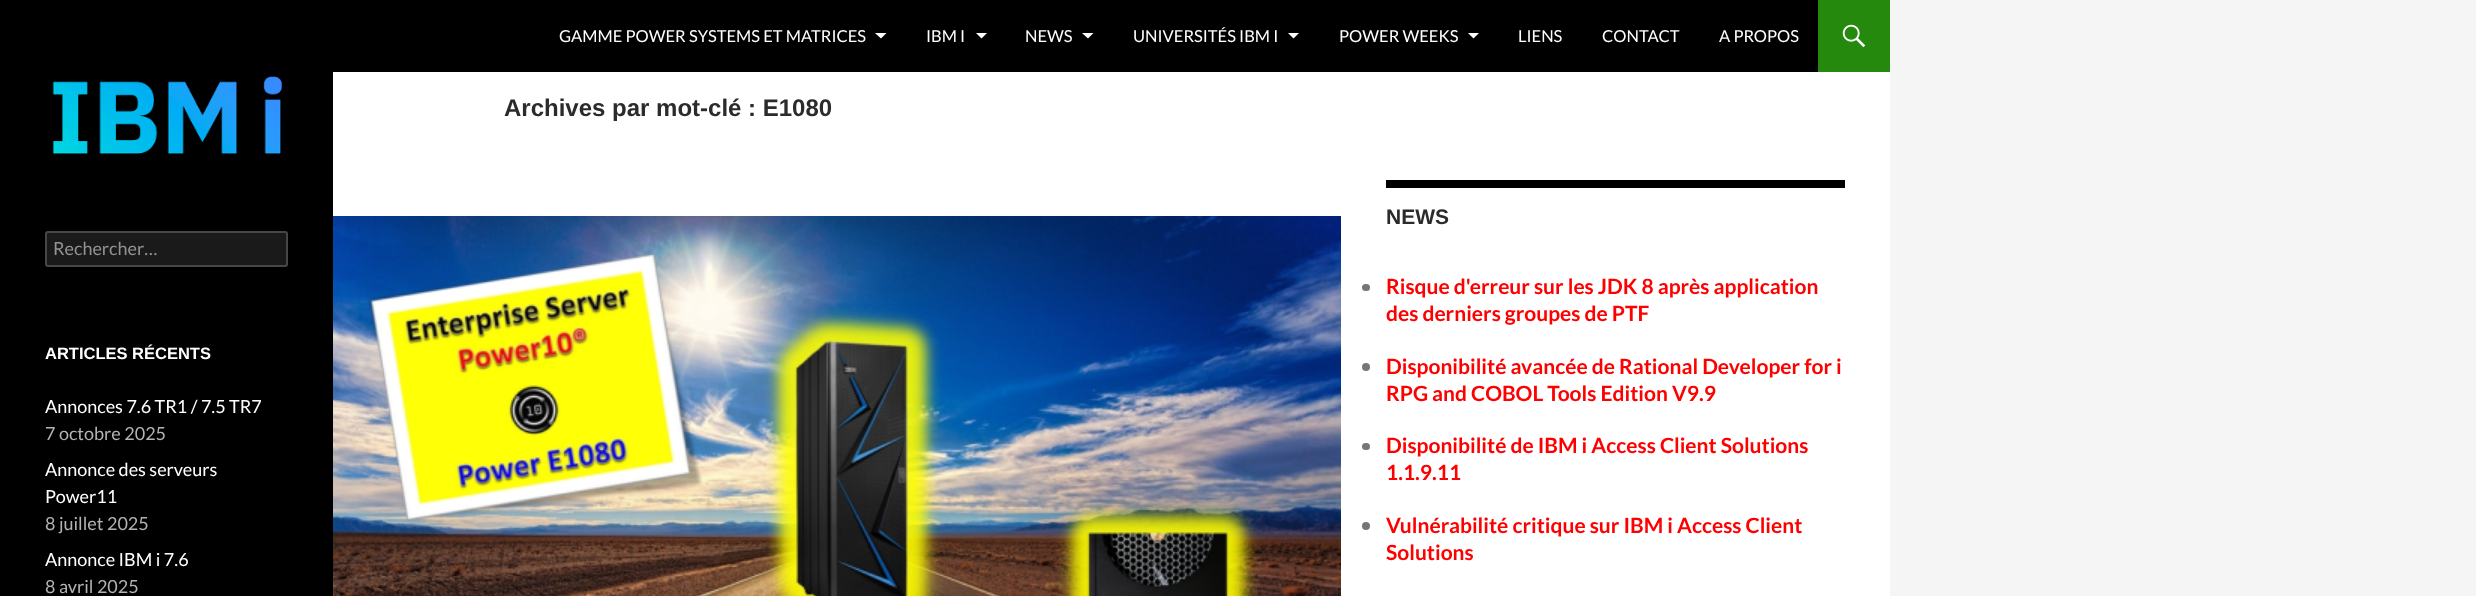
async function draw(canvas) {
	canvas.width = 2476;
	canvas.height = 596;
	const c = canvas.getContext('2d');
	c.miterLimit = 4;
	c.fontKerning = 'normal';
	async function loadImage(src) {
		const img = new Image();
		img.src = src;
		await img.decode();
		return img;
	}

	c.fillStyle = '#f5f5f5';
	c.fillRect(0, 0, 2476, 596);
	c.fillStyle = '#fff';
	c.fillRect(333, 72, 1557, 524);
	c.fillStyle = '#000';
	c.fillRect(0, 0, 1818, 72);
	c.font = '16.5px Lato';
	c.fillStyle = '#fff';
	c.fillText('GAMME POWER SYSTEMS ET MATRICES', 559, 42);
	c.beginPath();
	c.moveTo(875, 33);
	c.lineTo(886.5, 33);
	c.lineTo(881, 38.5);
	c.closePath();
	c.fill();
	c.fillText('IBM I', 926, 42);
	c.beginPath();
	c.moveTo(976, 33);
	c.lineTo(987, 33);
	c.lineTo(981.5, 38.5);
	c.closePath();
	c.fill();
	c.fillText('NEWS', 1025, 42);
	c.beginPath();
	c.moveTo(1082, 33);
	c.lineTo(1093.5, 33);
	c.lineTo(1088, 38.5);
	c.closePath();
	c.fill();
	c.fillText('UNIVERSITÉS IBM I', 1133, 42);
	c.beginPath();
	c.moveTo(1288, 33);
	c.lineTo(1299, 33);
	c.lineTo(1293.5, 38.5);
	c.closePath();
	c.fill();
	c.fillText('POWER WEEKS', 1339, 42);
	c.beginPath();
	c.moveTo(1468, 33);
	c.lineTo(1479, 33);
	c.lineTo(1473.5, 38.5);
	c.closePath();
	c.fill();
	for (const [text, x, y] of [
		['LIENS', 1518, 42],
		['CONTACT', 1602, 42],
		['A PROPOS', 1719, 42],
	]) {
		c.fillText(text, x, y);
	}
	c.fillStyle = '#24890d';
	c.fillRect(1818, 0, 72, 72);
	c.drawImage(await loadImage('img1.png'), 1842, 24, 24, 24);
	c.fillStyle = '#000';
	c.fillRect(0, 72, 333, 524);
	c.font = 'bold 24px Liberation Sans';
	c.fillStyle = '#2b2b2b';
	c.fillText('Archives par mot-clé : E1080', 504, 116);
	c.drawImage(await loadImage('img2.png'), 333, 216, 1008, 380);
	c.drawImage(await loadImage('img3.png'), 52, 76, 230, 78);
	c.fillStyle = '#1a1a1a';
	c.beginPath();
	c.roundRect(45, 231, 243, 36, 3);
	c.fill();
	c.beginPath();
	c.roundRect(46, 232, 241, 34, 2);
	c.strokeStyle = '#ffffff33';
	c.lineWidth = 2;
	c.stroke();
	c.font = '18px Lato';
	c.fillStyle = '#939393';
	c.fillText('Rechercher…', 53, 255);
	c.font = 'bold 16.5px Liberation Sans';
	c.fillStyle = '#fff';
	c.fillText('ARTICLES RÉCENTS', 45, 359);
	c.font = '18px Lato';
	c.fillText('Annonces 7.6 TR1 / 7.5 TR7', 45, 413);
	c.fillStyle = '#b3b3b3';
	c.fillText('7 octobre 2025', 45, 440);
	c.fillStyle = '#fff';
	c.fillText('Annonce des serveurs', 45, 476);
	c.fillText('Power11', 45, 503);
	c.fillStyle = '#b3b3b3';
	c.fillText('8 juillet 2025', 45, 530);
	c.fillStyle = '#fff';
	c.fillText('Annonce IBM i 7.6', 45, 566);
	c.fillStyle = '#b3b3b3';
	c.fillText('8 avril 2025', 45, 593);
	c.fillStyle = '#000';
	c.fillRect(1386, 180, 459, 8);
	c.font = 'bold 21px Liberation Sans';
	c.fillStyle = '#2b2b2b';
	c.fillText('NEWS', 1386, 224);
	c.fillStyle = '#767676';
	c.beginPath();
	c.roundRect(1362, 284, 8, 7, 3.5);
	c.fill();
	c.font = 'bold 21px Lato';
	c.fillStyle = '#f00';
	c.fillText('Risque d\'erreur sur les JDK 8 après application', 1386, 294);
	c.fillText('des derniers groupes de PTF', 1386, 321);
	c.fillStyle = '#767676';
	c.beginPath();
	c.arc(1366, 367, 4, 0, 2 * Math.PI);
	c.fill();
	c.fillStyle = '#f00';
	c.fillText('Disponibilité avancée de Rational Developer for i', 1386, 374);
	c.fillText('RPG and COBOL Tools Edition V9.9', 1386, 401);
	c.fillStyle = '#767676';
	c.beginPath();
	c.roundRect(1362, 443, 8, 7, 3.5);
	c.fill();
	c.fillStyle = '#f00';
	c.fillText('Disponibilité de IBM i Access Client Solutions', 1386, 453);
	c.fillText('1.1.9.11', 1386, 480);
	c.fillStyle = '#767676';
	c.beginPath();
	c.arc(1366, 526, 4, 0, 2 * Math.PI);
	c.fill();
	c.fillStyle = '#f00';
	c.fillText('Vulnérabilité critique sur IBM i Access Client', 1386, 533);
	c.fillText('Solutions', 1386, 560);
}

draw(document.querySelector('canvas'));
